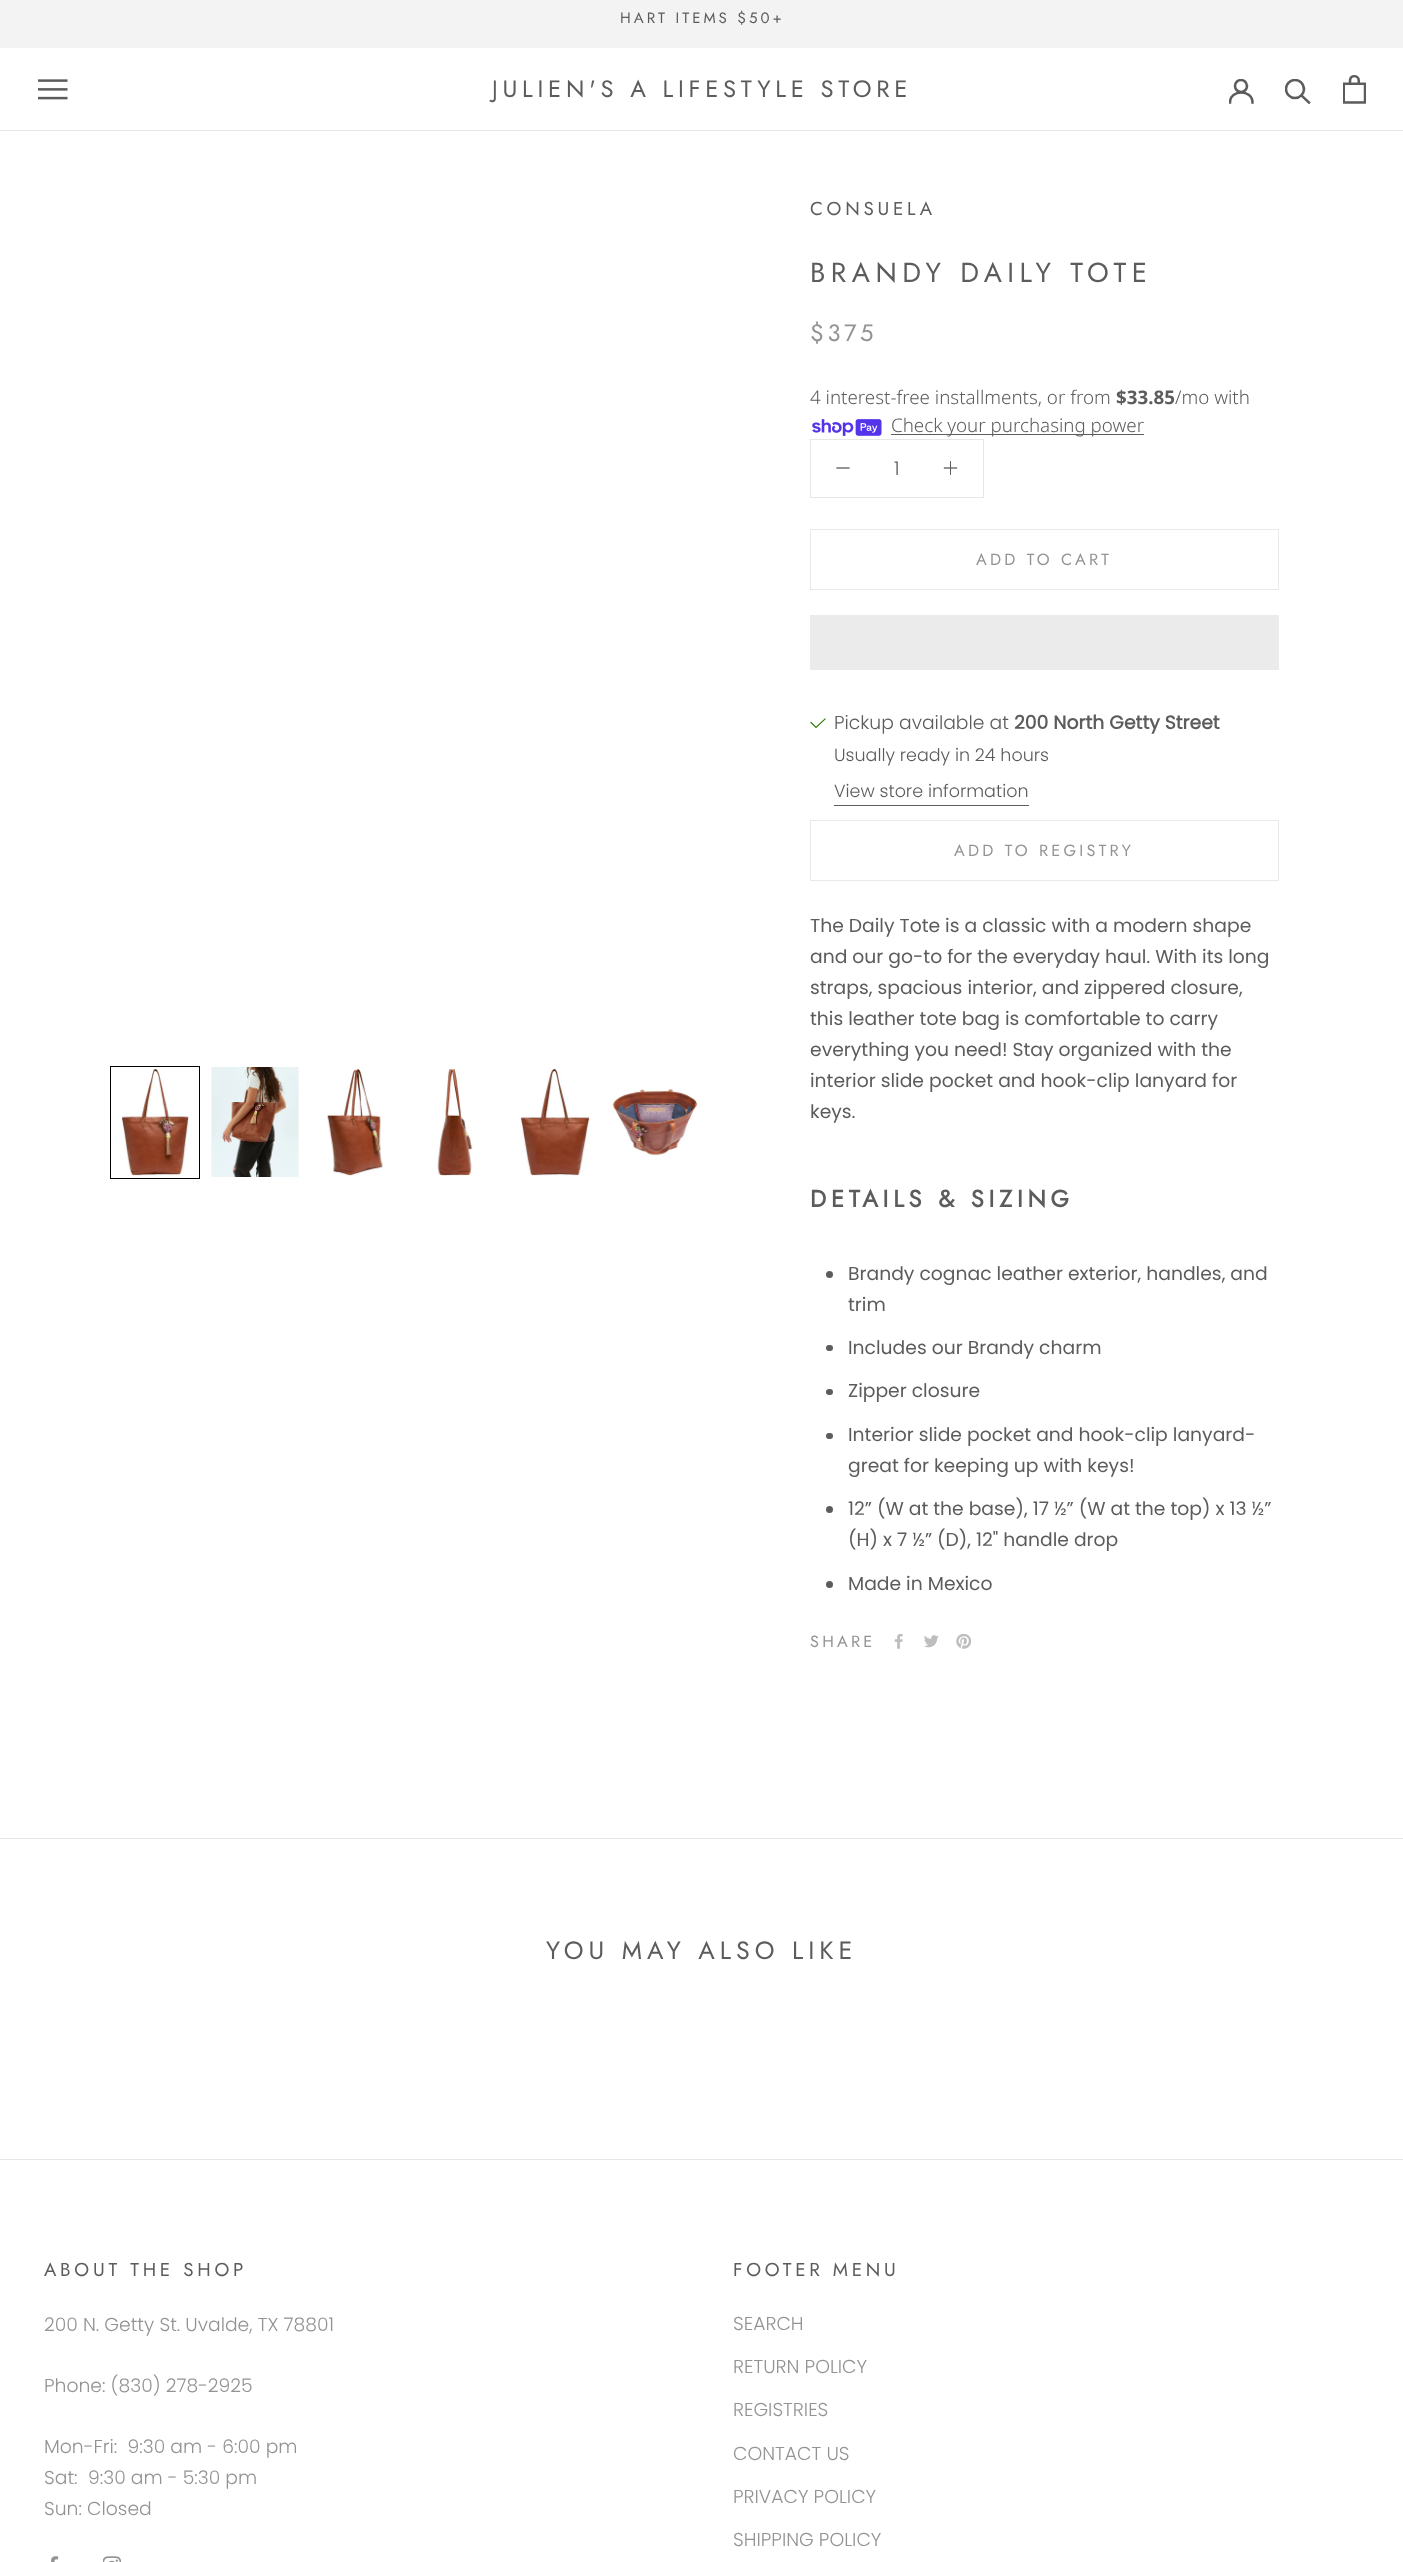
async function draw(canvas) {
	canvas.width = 1403;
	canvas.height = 2562;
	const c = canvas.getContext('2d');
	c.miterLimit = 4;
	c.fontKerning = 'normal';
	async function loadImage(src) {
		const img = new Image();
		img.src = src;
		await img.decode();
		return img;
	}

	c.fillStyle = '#fff';
	c.fillRect(0, 0, 1403, 2562);
	c.fillStyle = '#f3f3f3';
	c.fillRect(0, 0, 1403, 48);
	c.letterSpacing = '3px';
	c.font = '15px Jost';
	c.fillStyle = '#5c5c5c';
	c.fillText('HART ITEMS $50+', 620, 23);
	c.fillStyle = '#e7e7e7';
	c.fillRect(0, 130, 1403, 1);
	c.drawImage(await loadImage('img1.png'), 38, 79, 30, 21);
	c.letterSpacing = '4.75px';
	c.font = '23.75px Jost';
	c.fillStyle = '#5c5c5c';
	c.fillText('JULIEN\'S A LIFESTYLE STORE', 492, 97);
	c.save();
	c.beginPath();
	c.rect(1229, 79, 25, 25);
	c.clip();
	c.beginPath();
	c.moveTo(1230, 102.5);
	c.bezierCurveTo(1230, 89, 1252.5, 89, 1252.5, 102.5);
	c.strokeStyle = '#5c5c5c';
	c.lineWidth = 2.5;
	c.lineCap = 'square';
	c.stroke();
	c.beginPath();
	c.arc(1241, 86, 6, 0, 2 * Math.PI);
	c.stroke();
	c.restore();
	c.beginPath();
	c.moveTo(1309, 102.5);
	c.lineTo(1301.5, 95.5);
	c.strokeStyle = '#5c5c5c';
	c.lineWidth = 2.5;
	c.lineCap = 'square';
	c.stroke();
	c.save();
	c.beginPath();
	c.rect(1285, 79, 26, 26);
	c.clip();
	c.beginPath();
	c.arc(1295, 89, 9, 0, 2 * Math.PI);
	c.stroke();
	c.restore();
	c.drawImage(await loadImage('img2.png'), 1343, 75, 23, 29);
	c.strokeStyle = '#000';
	c.lineWidth = 1;
	c.strokeRect(110.5, 1066.5, 89, 112);
	c.drawImage(await loadImage('img3.png'), 121, 1067, 68, 109);
	c.drawImage(await loadImage('img4.png'), 211, 1067, 88, 110);
	c.drawImage(await loadImage('img5.png'), 327, 1067, 56, 109);
	c.drawImage(await loadImage('img6.png'), 437, 1067, 36, 109);
	c.drawImage(await loadImage('img7.png'), 519, 1067, 71, 109);
	c.drawImage(await loadImage('img8.png'), 612, 1089, 86, 67);
	c.letterSpacing = '3.75px';
	c.font = '18.75px Jost';
	c.fillText('CONSUELA', 810, 215);
	c.letterSpacing = '5.5px';
	c.font = '27.5px Jost';
	c.fillText('BRANDY DAILY TOTE', 810, 282);
	c.letterSpacing = '3.75px';
	c.font = '23.75px Jost';
	c.fillStyle = '#939393';
	c.fillText('$375', 810, 341);
	c.letterSpacing = '0px';
	c.font = '300 18.75px Noto Sans';
	c.fillStyle = '#5c5c5c';
	c.fillText('4 interest-free installments, or from', 810, 404);
	c.font = 'bold 18.75px Noto Sans';
	c.fillText('$33.85', 1116, 404);
	c.font = '300 18.75px Noto Sans';
	c.fillText('/mo with', 1175, 404);
	c.drawImage(await loadImage('img9.png'), 812, 419, 70, 17);
	c.fillRect(891, 434, 253, 1);
	c.fillText('Check your purchasing power', 891, 432);
	c.strokeStyle = '#e7e7e7';
	c.strokeRect(810.5, 439.5, 173, 58);
	c.beginPath();
	c.moveTo(837, 468);
	c.lineTo(849, 468);
	c.strokeStyle = '#5c5c5c';
	c.lineWidth = 1.3;
	c.stroke();
	c.font = '300 18.75px Poppins';
	c.fillText('1', 894, 475);
	c.fillRect(950, 461, 1, 14);
	c.beginPath();
	c.moveTo(944.5, 468);
	c.lineTo(956.5, 468);
	c.stroke();
	c.strokeStyle = '#e9e9e9';
	c.lineWidth = 1;
	c.strokeRect(810.5, 529.5, 468, 60);
	c.letterSpacing = '3.25px';
	c.font = '16.25px Jost';
	c.fillStyle = '#939393';
	c.fillText('ADD TO CART', 976, 565);
	c.fillStyle = '#ebebeb';
	c.fillRect(810, 615, 469, 55);
	c.beginPath();
	c.moveTo(811, 722.5);
	c.lineTo(816, 727.5);
	c.lineTo(825, 719);
	c.strokeStyle = '#307a07';
	c.lineWidth = 1.2;
	c.stroke();
	c.letterSpacing = '0px';
	c.font = '300 18.75px Poppins';
	c.fillStyle = '#5c5c5c';
	c.fillText('Pickup available at', 834, 729);
	c.font = 'bold 18.75px Poppins';
	c.fillText('200 North Getty Street', 1014, 729);
	c.font = '300 17.5px Poppins';
	c.fillText('Usually ready in 24 hours', 834, 761);
	c.fillText('View store information', 834, 797);
	c.fillRect(834, 805, 195, 1);
	c.strokeStyle = '#e9e9e9';
	c.lineWidth = 1;
	c.strokeRect(810.5, 820.5, 468, 60);
	c.letterSpacing = '3.25px';
	c.font = '16.25px Jost';
	c.fillStyle = '#939393';
	c.fillText('ADD TO REGISTRY', 954, 856);
	c.letterSpacing = '0px';
	c.font = '18.75px Poppins';
	c.fillStyle = '#5c5c5c';
	for (const [text, x, y] of [
		['The Daily Tote is a classic with a modern shape', 810, 932],
		['and our go-to for the everyday haul. With its long', 810, 963],
		['straps, spacious interior, and zippered closure,', 810, 994],
		['this leather tote bag is comfortable to carry', 810, 1025],
		['everything you need! Stay organized with the', 810, 1056],
		['interior slide pocket and hook-clip lanyard for', 810, 1087],
		['keys.', 810, 1118],
	]) {
		c.fillText(text, x, y);
	}
	c.letterSpacing = '4.75px';
	c.font = 'bold 23.75px Jost';
	c.fillText('DETAILS & SIZING', 810, 1207);
	c.beginPath();
	c.arc(829.5, 1274.5, 3.5, 0, 2 * Math.PI);
	c.fill();
	c.letterSpacing = '0px';
	c.font = '18.75px Poppins';
	c.fillText('Brandy cognac leather exterior, handles, and', 848, 1280);
	c.fillText('trim', 848, 1311);
	c.beginPath();
	c.roundRect(826, 1345, 7, 6, 3);
	c.fill();
	c.fillText('Includes our Brandy charm', 848, 1354);
	c.beginPath();
	c.roundRect(826, 1389, 7, 6, 3);
	c.fill();
	c.fillText('Zipper closure', 848, 1397);
	c.beginPath();
	c.roundRect(826, 1433, 7, 6, 3);
	c.fill();
	c.fillText('Interior slide pocket and hook-clip lanyard-', 848, 1441);
	c.fillText('great for keeping up with keys!', 848, 1472);
	c.beginPath();
	c.arc(829.5, 1509.5, 3.5, 0, 2 * Math.PI);
	c.fill();
	c.fillText('12” (W at the base), 17 ½” (W at the top) x 13 ½”', 848, 1515);
	c.fillText('(H) x 7 ½” (D), 12" handle drop', 848, 1546);
	c.beginPath();
	c.arc(829.5, 1584.5, 3.5, 0, 2 * Math.PI);
	c.fill();
	c.fillText('Made in Mexico', 848, 1590);
	c.letterSpacing = '3.25px';
	c.font = '16.25px Jost';
	c.fillStyle = '#939393';
	c.fillText('SHARE', 810, 1647);
	c.drawImage(await loadImage('img10.png'), 894, 1634, 9, 15);
	c.drawImage(await loadImage('img11.png'), 924, 1635, 15, 13);
	c.drawImage(await loadImage('img12.png'), 956, 1634, 15, 15);
	c.fillStyle = '#e7e7e7';
	c.fillRect(0, 1838, 1403, 1);
	c.letterSpacing = '5px';
	c.font = '25px Jost';
	c.fillStyle = '#5c5c5c';
	c.fillText('YOU MAY ALSO LIKE', 546, 1959);
	c.fillStyle = '#e7e7e7';
	c.fillRect(0, 2159, 1403, 1);
	c.letterSpacing = '3.75px';
	c.font = '18.75px Jost';
	c.fillStyle = '#5c5c5c';
	c.fillText('ABOUT THE SHOP', 44, 2276);
	c.letterSpacing = '0px';
	c.font = '300 18.75px Poppins';
	c.fillStyle = '#939393';
	for (const [text, x, y] of [
		['200 N. Getty St. Uvalde, TX 78801', 44, 2331],
		['Phone: (830) 278-2925', 44, 2392],
		['Mon-Fri:  9:30 am - 6:00 pm', 44, 2453],
		['Sat:', 44, 2484],
		['9:30 am - 5:30 pm', 88, 2484],
		['Sun: Closed', 44, 2515],
	]) {
		c.fillText(text, x, y);
	}
	c.drawImage(await loadImage('img13.png'), 51, 2556, 8, 6);
	c.drawImage(await loadImage('img14.png'), 103, 2556, 18, 6);
	c.letterSpacing = '3.75px';
	c.font = '18.75px Jost';
	c.fillStyle = '#5c5c5c';
	c.fillText('FOOTER MENU', 733, 2276);
	c.letterSpacing = '0px';
	c.font = '300 18.75px Poppins';
	c.fillStyle = '#939393';
	for (const [text, x, y] of [
		['SEARCH', 733, 2330],
		['RETURN POLICY', 733, 2373],
		['REGISTRIES', 733, 2416],
		['CONTACT US', 733, 2460],
		['PRIVACY POLICY', 733, 2503],
		['SHIPPING POLICY', 733, 2546],
	]) {
		c.fillText(text, x, y);
	}
}

draw(document.querySelector('canvas'));
